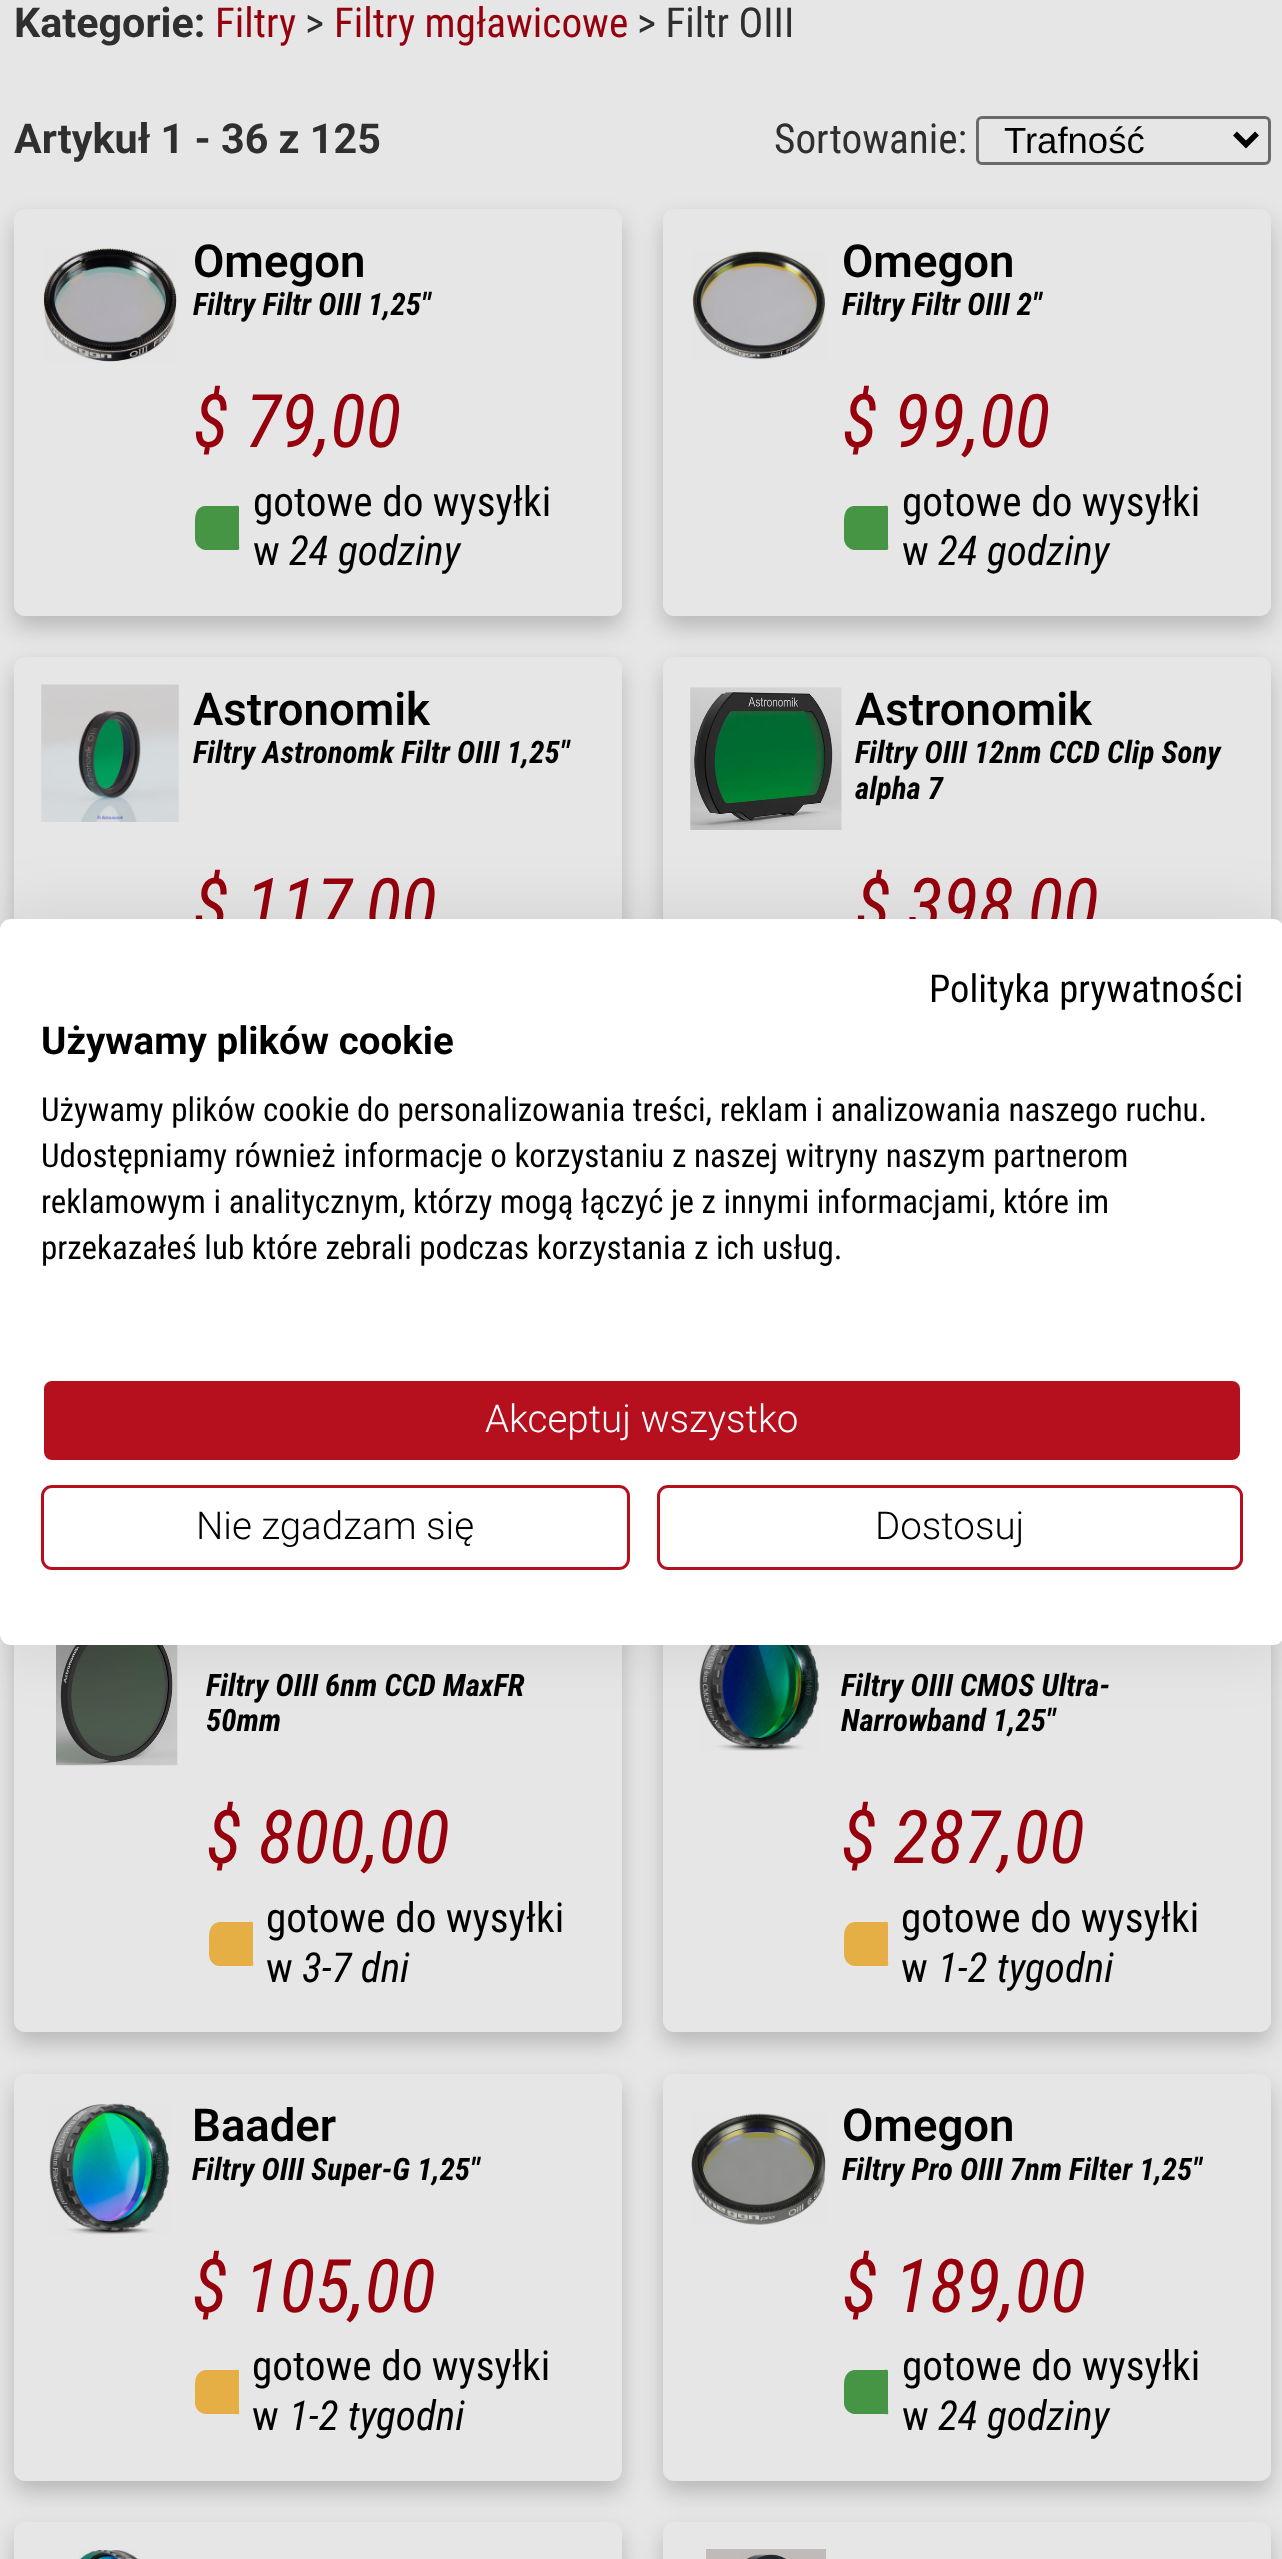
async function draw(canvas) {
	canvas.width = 1282;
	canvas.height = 2559;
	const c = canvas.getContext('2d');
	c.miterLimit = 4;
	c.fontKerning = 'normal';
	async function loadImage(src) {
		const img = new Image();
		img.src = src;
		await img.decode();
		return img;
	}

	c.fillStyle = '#e6e6e6';
	c.fillRect(0, 0, 1282, 2559);
	c.font = 'bold 41.25px Roboto';
	c.fillStyle = '#2f2f2f';
	c.fillText('Kategorie:', 14, 37);
	c.font = '41.25px Roboto Condensed';
	c.fillStyle = '#95000c';
	c.fillText('Filtry', 215, 37);
	c.fillStyle = '#2f2f2f';
	c.fillText('>', 305, 37);
	c.fillStyle = '#95000c';
	c.fillText('Filtry mgławicowe', 334, 37);
	c.fillStyle = '#2f2f2f';
	c.fillText('> Filtr OIII', 637, 37);
	c.font = 'bold 41.25px Roboto';
	c.fillText('Artykuł 1 - 36 z 125', 14, 153);
	c.font = '41.25px Roboto Condensed';
	c.fillText('Sortowanie:', 774, 153);
	c.beginPath();
	c.roundRect(977.5, 117.5, 292, 46, 4.5);
	c.strokeStyle = '#6a6a6a';
	c.lineWidth = 3;
	c.stroke();
	c.beginPath();
	c.moveTo(1235, 133.5);
	c.lineTo(1246, 144.5);
	c.lineTo(1257, 133.5);
	c.strokeStyle = '#000';
	c.lineWidth = 5.5;
	c.stroke();
	c.font = '36.5px Liberation Sans';
	c.fillStyle = '#000';
	c.fillText('Trafność', 1004, 153);
	c.save();
	c.beginPath();
	c.moveTo(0, 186);
	c.lineTo(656, 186);
	c.lineTo(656, 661);
	c.lineTo(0, 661);
	c.closePath();
	c.moveTo(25, 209);
	c.lineTo(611, 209);
	c.bezierCurveTo(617, 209, 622, 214, 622, 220);
	c.lineTo(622, 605);
	c.bezierCurveTo(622, 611, 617, 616, 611, 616);
	c.lineTo(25, 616);
	c.bezierCurveTo(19, 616, 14, 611, 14, 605);
	c.lineTo(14, 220);
	c.bezierCurveTo(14, 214, 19, 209, 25, 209);
	c.closePath();
	c.clip('evenodd');
	c.fillStyle = '#00000033';
	c.filter = 'blur(11px)';
	c.beginPath();
	c.roundRect(14, 220, 608, 407, 11);
	c.fill();
	c.filter = 'none';
	c.restore();
	c.drawImage(await loadImage('img1.png'), 42, 248, 135, 114);
	c.font = '600 45.5px Roboto';
	c.fillText('Omegon', 193, 277);
	c.font = 'italic bold 31px Roboto Condensed';
	c.fillText('Filtry Filtr OIII 1,25"', 193, 315);
	c.font = 'italic 74px Roboto Condensed';
	c.fillStyle = '#95000c';
	c.fillText('$ 79,00', 193, 447);
	c.fillStyle = '#459545';
	c.beginPath();
	c.moveTo(239, 507);
	c.lineTo(239, 542);
	c.bezierCurveTo(239, 551, 241, 550, 233, 550);
	c.lineTo(205, 550);
	c.bezierCurveTo(199, 549, 195, 544, 195, 538);
	c.lineTo(195, 525);
	c.bezierCurveTo(195, 517, 195, 507, 205, 506);
	c.lineTo(233, 506);
	c.bezierCurveTo(235, 506, 239, 505, 239, 507);
	c.closePath();
	c.fill();
	c.font = '41.25px Roboto Condensed';
	c.fillStyle = '#000';
	c.fillText('gotowe do wysyłki', 253, 516);
	c.fillText('w', 253, 565);
	c.font = 'italic 41.25px Roboto Condensed';
	c.fillText('24 godziny', 289, 565);
	c.save();
	c.beginPath();
	c.moveTo(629, 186);
	c.lineTo(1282, 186);
	c.lineTo(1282, 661);
	c.lineTo(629, 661);
	c.closePath();
	c.moveTo(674, 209);
	c.lineTo(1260, 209);
	c.bezierCurveTo(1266, 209, 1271, 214, 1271, 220);
	c.lineTo(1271, 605);
	c.bezierCurveTo(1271, 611, 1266, 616, 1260, 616);
	c.lineTo(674, 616);
	c.bezierCurveTo(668, 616, 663, 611, 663, 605);
	c.lineTo(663, 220);
	c.bezierCurveTo(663, 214, 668, 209, 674, 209);
	c.closePath();
	c.clip('evenodd');
	c.fillStyle = '#00000033';
	c.filter = 'blur(11px)';
	c.beginPath();
	c.roundRect(663, 220, 608, 407, 11);
	c.fill();
	c.filter = 'none';
	c.restore();
	c.drawImage(await loadImage('img2.png'), 691, 251, 135, 109);
	c.font = '600 45.5px Roboto';
	c.fillText('Omegon', 842, 277);
	c.font = 'italic bold 31px Roboto Condensed';
	c.fillText('Filtry Filtr OIII 2"', 842, 315);
	c.font = 'italic 74px Roboto Condensed';
	c.fillStyle = '#95000c';
	c.fillText('$ 99,00', 842, 447);
	c.fillStyle = '#459545';
	c.beginPath();
	c.moveTo(888, 507);
	c.lineTo(888, 542);
	c.bezierCurveTo(888, 551, 890, 550, 882, 550);
	c.lineTo(854, 550);
	c.bezierCurveTo(848, 549, 844, 544, 844, 538);
	c.lineTo(844, 525);
	c.bezierCurveTo(844, 517, 844, 507, 854, 506);
	c.lineTo(882, 506);
	c.bezierCurveTo(884, 506, 888, 505, 888, 507);
	c.closePath();
	c.fill();
	c.font = '41.25px Roboto Condensed';
	c.fillStyle = '#000';
	c.fillText('gotowe do wysyłki', 902, 516);
	c.fillText('w', 902, 565);
	c.font = 'italic 41.25px Roboto Condensed';
	c.fillText('24 godziny', 938, 565);
	c.save();
	c.beginPath();
	c.moveTo(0, 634);
	c.lineTo(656, 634);
	c.lineTo(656, 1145);
	c.lineTo(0, 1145);
	c.closePath();
	c.moveTo(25, 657);
	c.lineTo(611, 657);
	c.bezierCurveTo(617, 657, 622, 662, 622, 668);
	c.lineTo(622, 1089);
	c.bezierCurveTo(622, 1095, 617, 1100, 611, 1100);
	c.lineTo(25, 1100);
	c.bezierCurveTo(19, 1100, 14, 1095, 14, 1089);
	c.lineTo(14, 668);
	c.bezierCurveTo(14, 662, 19, 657, 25, 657);
	c.closePath();
	c.clip('evenodd');
	c.fillStyle = '#00000033';
	c.filter = 'blur(11px)';
	c.beginPath();
	c.roundRect(14, 668, 608, 443, 11);
	c.fill();
	c.filter = 'none';
	c.restore();
	c.drawImage(await loadImage('img3.png'), 41, 684, 138, 138);
	c.font = '600 45.5px Roboto';
	c.fillText('Astronomik', 193, 725);
	c.font = 'italic bold 31px Roboto Condensed';
	c.fillText('Filtry Astronomk Filtr OIII 1,25"', 193, 763);
	c.font = 'italic 74px Roboto Condensed';
	c.fillStyle = '#95000c';
	c.fillText('$ 117,00', 193, 931);
	c.save();
	c.beginPath();
	c.moveTo(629, 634);
	c.lineTo(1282, 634);
	c.lineTo(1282, 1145);
	c.lineTo(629, 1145);
	c.closePath();
	c.moveTo(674, 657);
	c.lineTo(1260, 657);
	c.bezierCurveTo(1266, 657, 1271, 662, 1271, 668);
	c.lineTo(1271, 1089);
	c.bezierCurveTo(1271, 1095, 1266, 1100, 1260, 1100);
	c.lineTo(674, 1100);
	c.bezierCurveTo(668, 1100, 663, 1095, 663, 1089);
	c.lineTo(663, 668);
	c.bezierCurveTo(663, 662, 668, 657, 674, 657);
	c.closePath();
	c.clip('evenodd');
	c.fillStyle = '#00000033';
	c.filter = 'blur(11px)';
	c.beginPath();
	c.roundRect(663, 668, 608, 443, 11);
	c.fill();
	c.filter = 'none';
	c.restore();
	c.drawImage(await loadImage('img4.png'), 690, 687, 152, 143);
	c.font = '600 45.5px Roboto';
	c.fillStyle = '#000';
	c.fillText('Astronomik', 855, 725);
	c.font = 'italic bold 31px Roboto Condensed';
	c.fillText('Filtry OIII 12nm CCD Clip Sony', 855, 763);
	c.fillText('alpha 7', 855, 799);
	c.font = 'italic 74px Roboto Condensed';
	c.fillStyle = '#95000c';
	c.fillText('$ 398,00', 855, 931);
	c.save();
	c.beginPath();
	c.moveTo(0, 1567);
	c.lineTo(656, 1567);
	c.lineTo(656, 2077);
	c.lineTo(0, 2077);
	c.closePath();
	c.moveTo(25, 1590);
	c.lineTo(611, 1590);
	c.bezierCurveTo(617, 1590, 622, 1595, 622, 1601);
	c.lineTo(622, 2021);
	c.bezierCurveTo(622, 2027, 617, 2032, 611, 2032);
	c.lineTo(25, 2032);
	c.bezierCurveTo(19, 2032, 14, 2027, 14, 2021);
	c.lineTo(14, 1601);
	c.bezierCurveTo(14, 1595, 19, 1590, 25, 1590);
	c.closePath();
	c.clip('evenodd');
	c.fillStyle = '#00000033';
	c.filter = 'blur(11px)';
	c.beginPath();
	c.roundRect(14, 1601, 608, 442, 11);
	c.fill();
	c.filter = 'none';
	c.restore();
	c.drawImage(await loadImage('img5.png'), 56, 1645, 122, 121);
	c.font = 'italic bold 31px Roboto Condensed';
	c.fillStyle = '#000';
	c.fillText('Filtry OIII 6nm CCD MaxFR', 206, 1696);
	c.fillText('50mm', 206, 1731);
	c.font = 'italic 74px Roboto Condensed';
	c.fillStyle = '#95000c';
	c.fillText('$ 800,00', 206, 1863);
	c.fillStyle = '#e6af45';
	c.beginPath();
	c.moveTo(253, 1923);
	c.lineTo(253, 1958);
	c.bezierCurveTo(253, 1967, 255, 1966, 247, 1966);
	c.lineTo(218, 1966);
	c.bezierCurveTo(213, 1965, 209, 1960, 209, 1954);
	c.lineTo(209, 1941);
	c.bezierCurveTo(209, 1933, 209, 1924, 219, 1922);
	c.lineTo(247, 1922);
	c.bezierCurveTo(249, 1922, 253, 1921, 253, 1923);
	c.closePath();
	c.fill();
	c.font = '41.25px Roboto Condensed';
	c.fillStyle = '#000';
	c.fillText('gotowe do wysyłki', 266, 1932);
	c.fillText('w', 266, 1982);
	c.font = 'italic 41.25px Roboto Condensed';
	c.fillText('3-7 dni', 302, 1982);
	c.save();
	c.beginPath();
	c.moveTo(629, 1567);
	c.lineTo(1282, 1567);
	c.lineTo(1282, 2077);
	c.lineTo(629, 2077);
	c.closePath();
	c.moveTo(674, 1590);
	c.lineTo(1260, 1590);
	c.bezierCurveTo(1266, 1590, 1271, 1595, 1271, 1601);
	c.lineTo(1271, 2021);
	c.bezierCurveTo(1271, 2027, 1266, 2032, 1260, 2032);
	c.lineTo(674, 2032);
	c.bezierCurveTo(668, 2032, 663, 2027, 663, 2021);
	c.lineTo(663, 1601);
	c.bezierCurveTo(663, 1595, 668, 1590, 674, 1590);
	c.closePath();
	c.clip('evenodd');
	c.fillStyle = '#00000033';
	c.filter = 'blur(11px)';
	c.beginPath();
	c.roundRect(663, 1601, 608, 442, 11);
	c.fill();
	c.filter = 'none';
	c.restore();
	c.drawImage(await loadImage('img6.png'), 699, 1645, 120, 106);
	c.font = 'italic bold 31px Roboto Condensed';
	c.fillText('Filtry OIII CMOS Ultra-', 841, 1696);
	c.fillText('Narrowband 1,25"', 841, 1731);
	c.font = 'italic 74px Roboto Condensed';
	c.fillStyle = '#95000c';
	c.fillText('$ 287,00', 841, 1863);
	c.fillStyle = '#e6af45';
	c.beginPath();
	c.moveTo(888, 1923);
	c.lineTo(888, 1958);
	c.bezierCurveTo(888, 1967, 890, 1966, 882, 1966);
	c.lineTo(854, 1966);
	c.bezierCurveTo(848, 1965, 844, 1960, 844, 1954);
	c.lineTo(844, 1941);
	c.bezierCurveTo(844, 1933, 844, 1924, 854, 1922);
	c.lineTo(882, 1922);
	c.bezierCurveTo(884, 1922, 888, 1921, 888, 1923);
	c.closePath();
	c.fill();
	c.font = '41.25px Roboto Condensed';
	c.fillStyle = '#000';
	c.fillText('gotowe do wysyłki', 901, 1932);
	c.fillText('w', 901, 1982);
	c.font = 'italic 41.25px Roboto Condensed';
	c.fillText('1-2 tygodni', 938, 1982);
	c.save();
	c.beginPath();
	c.moveTo(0, 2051);
	c.lineTo(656, 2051);
	c.lineTo(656, 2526);
	c.lineTo(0, 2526);
	c.closePath();
	c.moveTo(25, 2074);
	c.lineTo(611, 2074);
	c.bezierCurveTo(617, 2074, 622, 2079, 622, 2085);
	c.lineTo(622, 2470);
	c.bezierCurveTo(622, 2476, 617, 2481, 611, 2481);
	c.lineTo(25, 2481);
	c.bezierCurveTo(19, 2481, 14, 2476, 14, 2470);
	c.lineTo(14, 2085);
	c.bezierCurveTo(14, 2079, 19, 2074, 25, 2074);
	c.closePath();
	c.clip('evenodd');
	c.fillStyle = '#00000033';
	c.filter = 'blur(11px)';
	c.beginPath();
	c.roundRect(14, 2085, 608, 407, 11);
	c.fill();
	c.filter = 'none';
	c.restore();
	c.drawImage(await loadImage('img7.png'), 49, 2103, 121, 132);
	c.font = '600 45.5px Roboto';
	c.fillText('Baader', 192, 2141);
	c.font = 'italic bold 31px Roboto Condensed';
	c.fillText('Filtry OIII Super-G 1,25"', 192, 2180);
	c.font = 'italic 74px Roboto Condensed';
	c.fillStyle = '#95000c';
	c.fillText('$ 105,00', 192, 2312);
	c.fillStyle = '#e6af45';
	c.beginPath();
	c.moveTo(239, 2371);
	c.lineTo(239, 2407);
	c.bezierCurveTo(239, 2416, 241, 2414, 233, 2414);
	c.lineTo(205, 2414);
	c.bezierCurveTo(199, 2413, 195, 2408, 195, 2403);
	c.lineTo(195, 2389);
	c.bezierCurveTo(195, 2381, 195, 2372, 205, 2370);
	c.lineTo(233, 2370);
	c.bezierCurveTo(235, 2370, 239, 2369, 239, 2371);
	c.closePath();
	c.fill();
	c.font = '41.25px Roboto Condensed';
	c.fillStyle = '#000';
	c.fillText('gotowe do wysyłki', 252, 2380);
	c.fillText('w', 252, 2430);
	c.font = 'italic 41.25px Roboto Condensed';
	c.fillText('1-2 tygodni', 289, 2430);
	c.save();
	c.beginPath();
	c.moveTo(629, 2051);
	c.lineTo(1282, 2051);
	c.lineTo(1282, 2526);
	c.lineTo(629, 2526);
	c.closePath();
	c.moveTo(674, 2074);
	c.lineTo(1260, 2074);
	c.bezierCurveTo(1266, 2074, 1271, 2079, 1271, 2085);
	c.lineTo(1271, 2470);
	c.bezierCurveTo(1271, 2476, 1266, 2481, 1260, 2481);
	c.lineTo(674, 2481);
	c.bezierCurveTo(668, 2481, 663, 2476, 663, 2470);
	c.lineTo(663, 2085);
	c.bezierCurveTo(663, 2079, 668, 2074, 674, 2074);
	c.closePath();
	c.clip('evenodd');
	c.fillStyle = '#00000033';
	c.filter = 'blur(11px)';
	c.beginPath();
	c.roundRect(663, 2085, 608, 407, 11);
	c.fill();
	c.filter = 'none';
	c.restore();
	c.drawImage(await loadImage('img8.png'), 691, 2113, 135, 112);
	c.font = '600 45.5px Roboto';
	c.fillText('Omegon', 842, 2141);
	c.font = 'italic bold 31px Roboto Condensed';
	c.fillText('Filtry Pro OIII 7nm Filter 1,25"', 842, 2180);
	c.font = 'italic 74px Roboto Condensed';
	c.fillStyle = '#95000c';
	c.fillText('$ 189,00', 842, 2312);
	c.fillStyle = '#459545';
	c.beginPath();
	c.moveTo(888, 2371);
	c.lineTo(888, 2407);
	c.bezierCurveTo(888, 2416, 890, 2414, 882, 2414);
	c.lineTo(854, 2414);
	c.bezierCurveTo(848, 2413, 844, 2408, 844, 2403);
	c.lineTo(844, 2389);
	c.bezierCurveTo(844, 2381, 844, 2372, 854, 2370);
	c.lineTo(882, 2370);
	c.bezierCurveTo(884, 2370, 888, 2369, 888, 2371);
	c.closePath();
	c.fill();
	c.font = '41.25px Roboto Condensed';
	c.fillStyle = '#000';
	c.fillText('gotowe do wysyłki', 902, 2380);
	c.fillText('w', 902, 2430);
	c.font = 'italic 41.25px Roboto Condensed';
	c.fillText('24 godziny', 938, 2430);
	c.save();
	c.beginPath();
	c.moveTo(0, 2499);
	c.lineTo(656, 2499);
	c.lineTo(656, 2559);
	c.lineTo(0, 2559);
	c.closePath();
	c.moveTo(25, 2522);
	c.lineTo(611, 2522);
	c.bezierCurveTo(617, 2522, 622, 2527, 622, 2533);
	c.lineTo(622, 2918);
	c.bezierCurveTo(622, 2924, 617, 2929, 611, 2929);
	c.lineTo(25, 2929);
	c.bezierCurveTo(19, 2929, 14, 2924, 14, 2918);
	c.lineTo(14, 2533);
	c.bezierCurveTo(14, 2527, 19, 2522, 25, 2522);
	c.closePath();
	c.clip('evenodd');
	c.fillStyle = '#00000033';
	c.filter = 'blur(11px)';
	c.beginPath();
	c.roundRect(14, 2533, 608, 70, 11);
	c.fill();
	c.filter = 'none';
	c.restore();
	c.drawImage(await loadImage('img9.png'), 79, 2549, 60, 10);
	c.save();
	c.beginPath();
	c.moveTo(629, 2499);
	c.lineTo(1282, 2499);
	c.lineTo(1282, 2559);
	c.lineTo(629, 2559);
	c.closePath();
	c.moveTo(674, 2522);
	c.lineTo(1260, 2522);
	c.bezierCurveTo(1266, 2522, 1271, 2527, 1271, 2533);
	c.lineTo(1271, 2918);
	c.bezierCurveTo(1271, 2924, 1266, 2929, 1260, 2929);
	c.lineTo(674, 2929);
	c.bezierCurveTo(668, 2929, 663, 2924, 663, 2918);
	c.lineTo(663, 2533);
	c.bezierCurveTo(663, 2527, 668, 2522, 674, 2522);
	c.closePath();
	c.clip('evenodd');
	c.fillStyle = '#00000033';
	c.filter = 'blur(11px)';
	c.beginPath();
	c.roundRect(663, 2533, 608, 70, 11);
	c.fill();
	c.filter = 'none';
	c.restore();
	c.drawImage(await loadImage('img10.png'), 706, 2549, 120, 10);
	c.fillStyle = '#0000001a';
	c.filter = 'blur(33px)';
	c.beginPath();
	c.roundRect(0, 919, 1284, 726, 11);
	c.fill();
	c.filter = 'none';
	c.fillStyle = '#fff';
	c.beginPath();
	c.roundRect(0, 919, 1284, 726, 11);
	c.fill();
	c.font = '38.5px Roboto Condensed';
	c.fillStyle = '#000';
	c.fillText('Polityka prywatności', 929, 1002);
	c.font = 'bold 38.5px Roboto';
	c.fillText('Używamy plików cookie', 41, 1054);
	c.font = '33px Roboto Condensed';
	for (const [text, x, y] of [
		['Używamy plików cookie do personalizowania treści, reklam i analizowania naszego ruchu.', 41, 1121],
		['Udostępniamy również informacje o korzystaniu z naszej witryny naszym partnerom', 41, 1167],
		['reklamowym i analitycznym, którzy mogą łączyć je z innymi informacjami, które im', 41, 1213],
		['przekazałeś lub które zebrali podczas korzystania z ich usług.', 41, 1259],
	]) {
		c.fillText(text, x, y);
	}
	c.fillStyle = '#b60f1d';
	c.beginPath();
	c.roundRect(42.5, 1379.5, 1199, 82, 9.5);
	c.fill();
	c.strokeStyle = '#fff';
	c.lineWidth = 3;
	c.stroke();
	c.font = '300 38.5px Roboto';
	c.fillStyle = '#fff';
	c.fillText('Akceptuj wszystko', 485, 1432);
	c.beginPath();
	c.roundRect(42.5, 1486.5, 586, 82, 9.5);
	c.strokeStyle = '#b60f1d';
	c.stroke();
	c.fillStyle = '#000';
	c.fillText('Nie zgadzam się', 196, 1539);
	c.beginPath();
	c.roundRect(658.5, 1486.5, 583, 82, 9.5);
	c.stroke();
	c.fillText('Dostosuj', 875, 1539);
}

draw(document.querySelector('canvas'));
